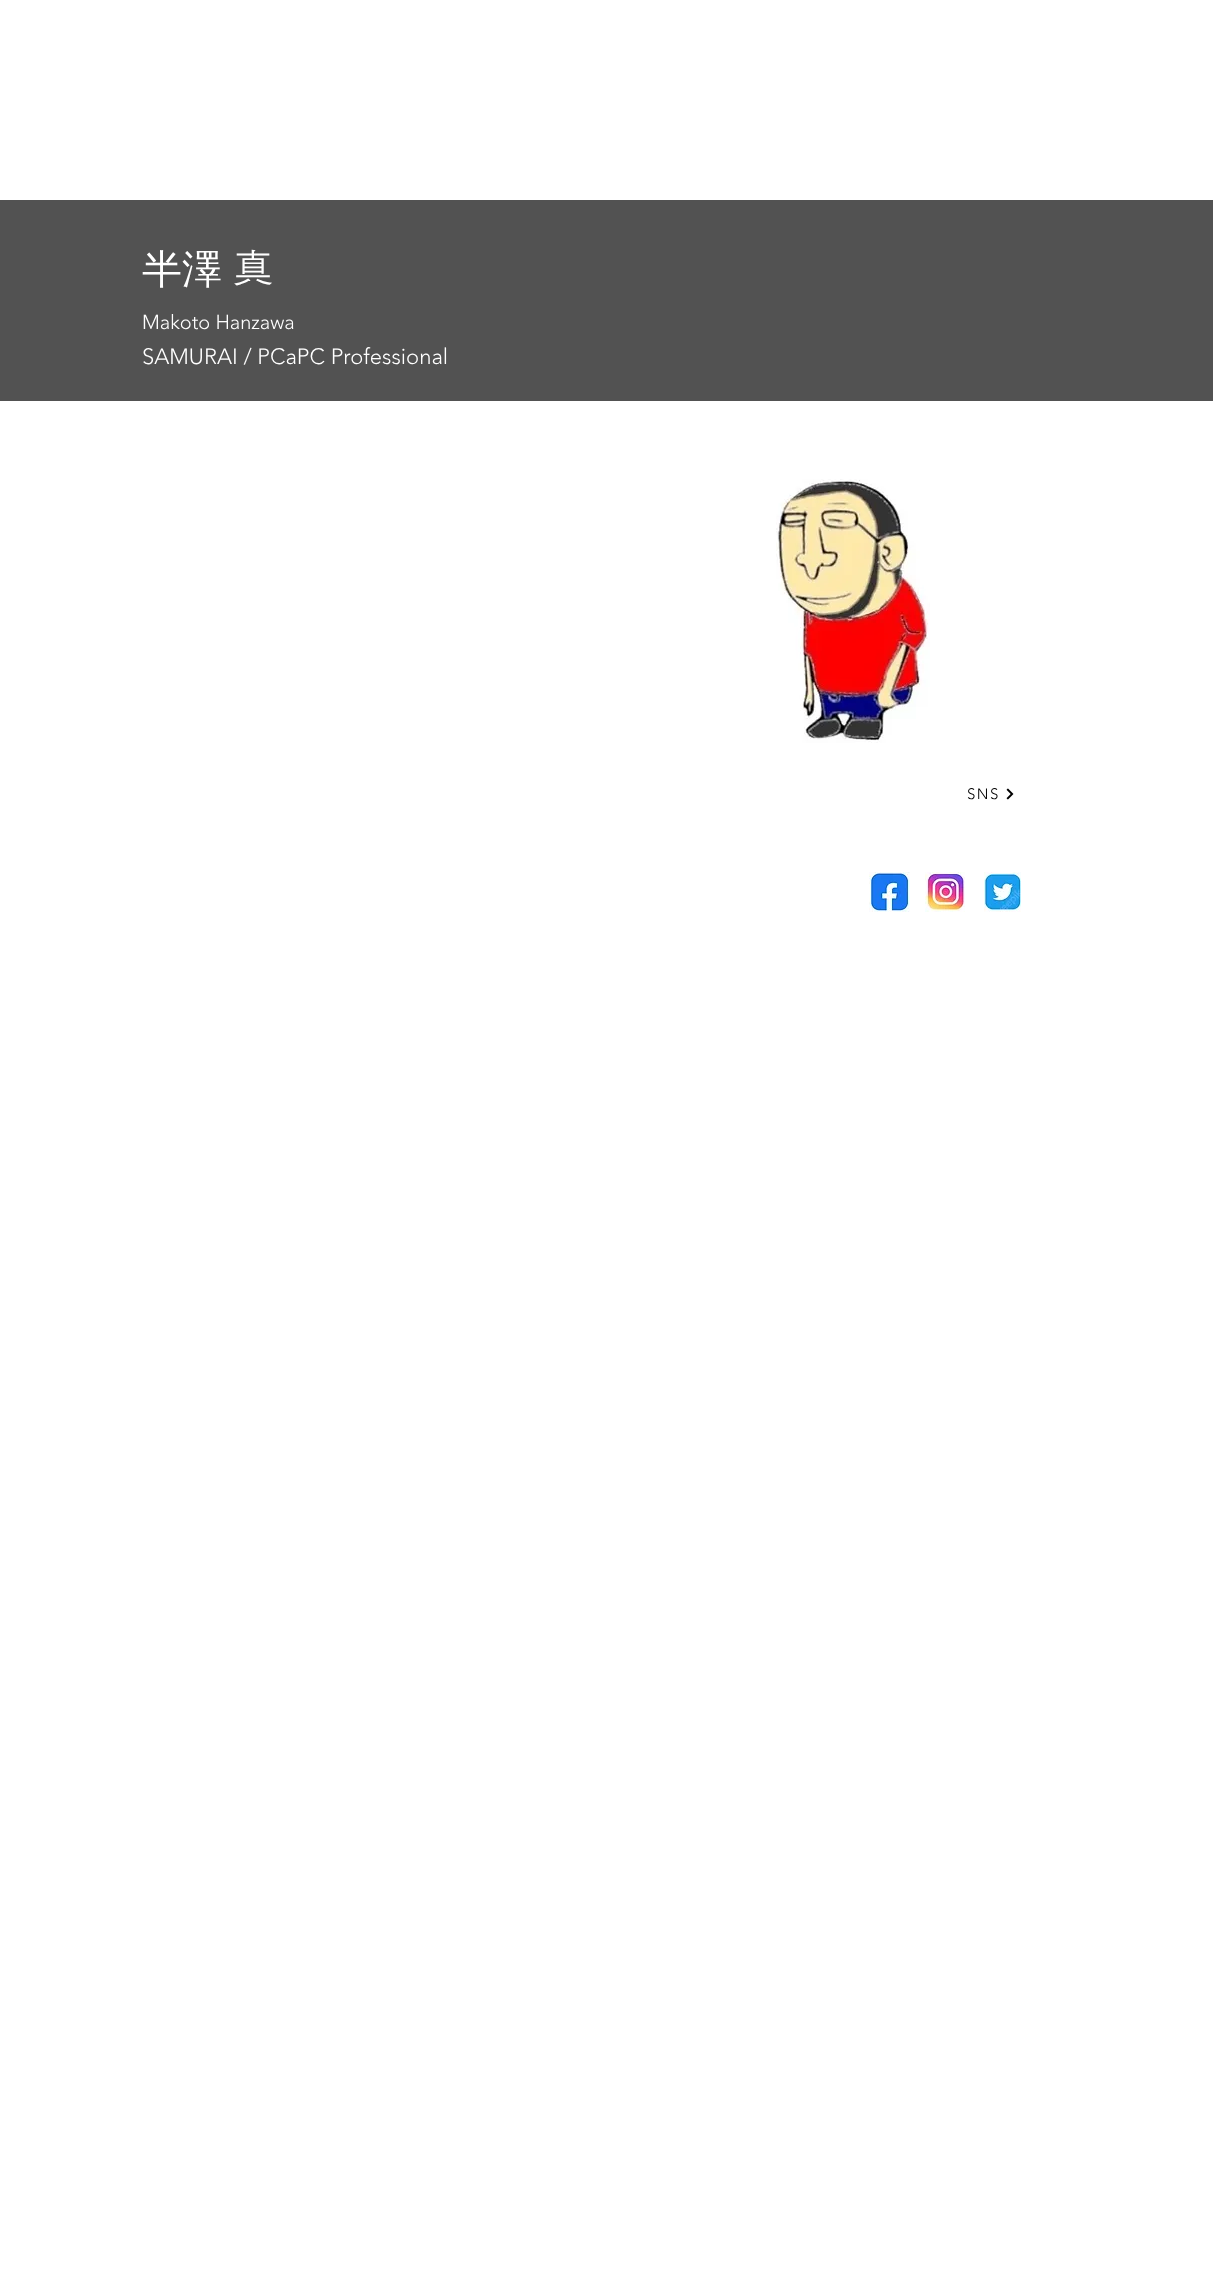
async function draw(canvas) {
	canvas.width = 1213;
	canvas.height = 2290;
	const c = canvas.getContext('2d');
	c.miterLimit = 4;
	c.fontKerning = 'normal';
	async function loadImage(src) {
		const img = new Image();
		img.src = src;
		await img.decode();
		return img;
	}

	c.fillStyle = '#fff';
	c.fillRect(0, 0, 1213, 2290);
	c.fillStyle = '#525252';
	c.fillRect(0, 200, 1213, 201);
	c.font = '500 40px WenQuanYi Zen Hei';
	c.fillStyle = '#fff';
	c.fillText('半澤', 142, 283);
	c.font = '40px "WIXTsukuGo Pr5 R"';
	c.fillText('真', 233, 283);
	c.font = '300 20px "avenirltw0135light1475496"';
	c.fillText('Makoto Hanzawa', 142, 329);
	c.font = '300 22px "avenirltw0135light1475496"';
	c.fillText('SAMURAI / PCaPC Professional', 142, 364);
	c.drawImage(await loadImage('img1.png'), 776, 479, 154, 264);
	c.letterSpacing = '1.5px';
	c.font = '300 15px "avenirltw0135light1475496"';
	c.fillStyle = '#000';
	c.fillText('SNS', 967, 799);
	c.drawImage(await loadImage('img2.png'), 1006, 788, 8, 12);
	c.drawImage(await loadImage('img3.png'), 869, 872, 41, 40);
	c.drawImage(await loadImage('img4.png'), 925, 872, 40, 40);
	c.drawImage(await loadImage('img5.png'), 984, 872, 37, 40);
}

draw(document.querySelector('canvas'));
